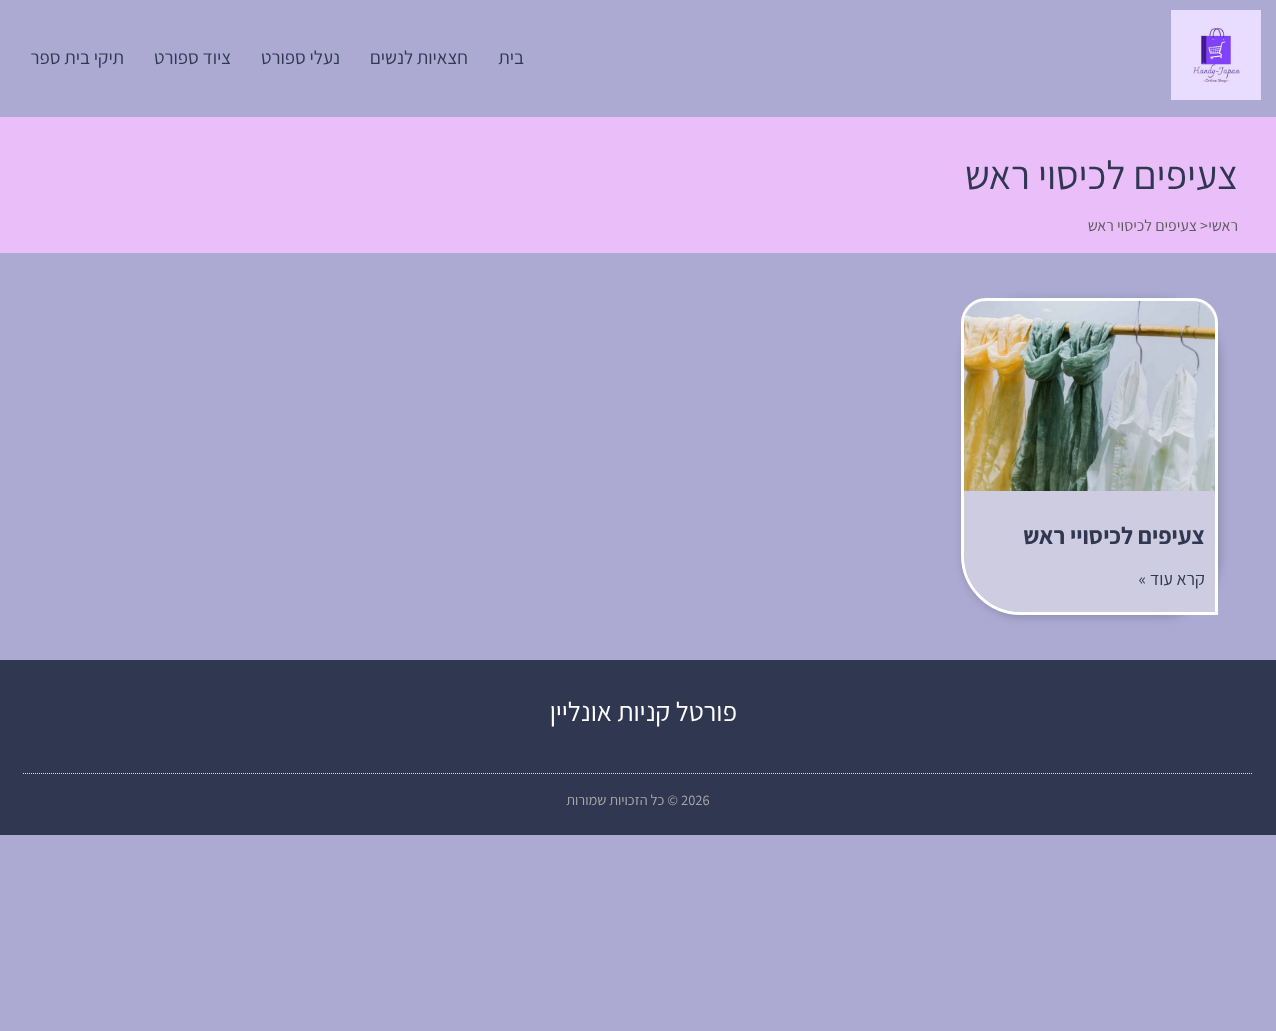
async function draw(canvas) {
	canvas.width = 1276;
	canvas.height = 1031;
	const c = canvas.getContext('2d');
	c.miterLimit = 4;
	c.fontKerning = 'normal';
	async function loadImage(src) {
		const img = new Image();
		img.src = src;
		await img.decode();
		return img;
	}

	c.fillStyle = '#aca9d3';
	c.fillRect(0, 0, 1276, 1031);
	c.drawImage(await loadImage('img1.png'), 1171, 10, 90, 90);
	c.direction = 'rtl';
	c.font = '19px Assistant';
	c.fillStyle = '#303751';
	for (const [text, x, y] of [
		['בית', 524, 64],
		['חצאיות לנשים', 468, 64],
		['נעלי ספורט', 340, 64],
		['ציוד ספורט', 231, 64],
		['תיקי בית ספר', 124, 64],
	]) {
		c.fillText(text, x, y);
	}
	c.fillStyle = '#eabff9';
	c.fillRect(0, 117, 1276, 136);
	c.font = '40px Assistant';
	c.fillStyle = '#303751';
	c.fillText('צעיפים לכיסוי ראש', 1238, 189);
	c.font = '16px Assistant';
	c.fillStyle = '#5b5b5b';
	c.fillText('ראשי', 1238, 231);
	c.direction = 'ltr';
	c.fillText('>', 1200, 231);
	c.direction = 'rtl';
	c.fillText('צעיפים לכיסוי ראש', 1197, 231);
	c.save();
	c.beginPath();
	c.moveTo(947, 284);
	c.lineTo(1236, 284);
	c.lineTo(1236, 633);
	c.lineTo(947, 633);
	c.closePath();
	c.moveTo(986, 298);
	c.lineTo(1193, 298);
	c.bezierCurveTo(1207, 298, 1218, 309, 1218, 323);
	c.lineTo(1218, 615);
	c.lineTo(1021, 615);
	c.bezierCurveTo(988, 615, 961, 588, 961, 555);
	c.lineTo(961, 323);
	c.bezierCurveTo(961, 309, 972, 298, 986, 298);
	c.closePath();
	c.clip('evenodd');
	c.fillStyle = '#0000002e';
	c.filter = 'blur(5px)';
	c.beginPath();
	c.roundRect(963, 300, 257, 317, 60);
	c.fill();
	c.filter = 'none';
	c.restore();
	c.beginPath();
	c.roundRect(962.5, 299.5, 254, 314, [23.5, 23.5, 0, 58.5]);
	c.strokeStyle = '#fff';
	c.lineWidth = 3;
	c.stroke();
	c.fillStyle = '#efefef80';
	c.beginPath();
	c.roundRect(964, 301, 251, 311, [22, 22, 0, 57]);
	c.fill();
	c.fillStyle = '#fff';
	c.beginPath();
	c.roundRect(964, 301, 251, 190, [22, 22, 0, 0]);
	c.fill();
	c.drawImage(await loadImage('img2.png'), 964, 301, 251, 190);
	c.font = 'bold 24px Assistant';
	c.fillStyle = '#303751';
	c.fillText('צעיפים לכיסויי ראש', 1205, 544);
	c.font = '18px Assistant';
	c.fillText('קרא עוד »', 1205, 585);
	c.fillRect(0, 660, 1276, 175);
	c.font = '27px Assistant';
	c.fillStyle = '#fff';
	c.fillText('פורטל קניות אונליין', 737, 721);
	c.beginPath();
	c.moveTo(23, 773.5);
	c.lineTo(1253, 773.5);
	c.strokeStyle = '#e2dad6';
	c.lineWidth = 1;
	c.setLineDash([1, 1]);
	c.stroke();
	c.direction = 'ltr';
	c.font = '14.5px Assistant';
	c.fillStyle = '#aaa';
	c.fillText('2026', 681, 805);
	c.direction = 'rtl';
	c.fillText('© כל הזכויות שמורות', 678, 805);
}

draw(document.querySelector('canvas'));
